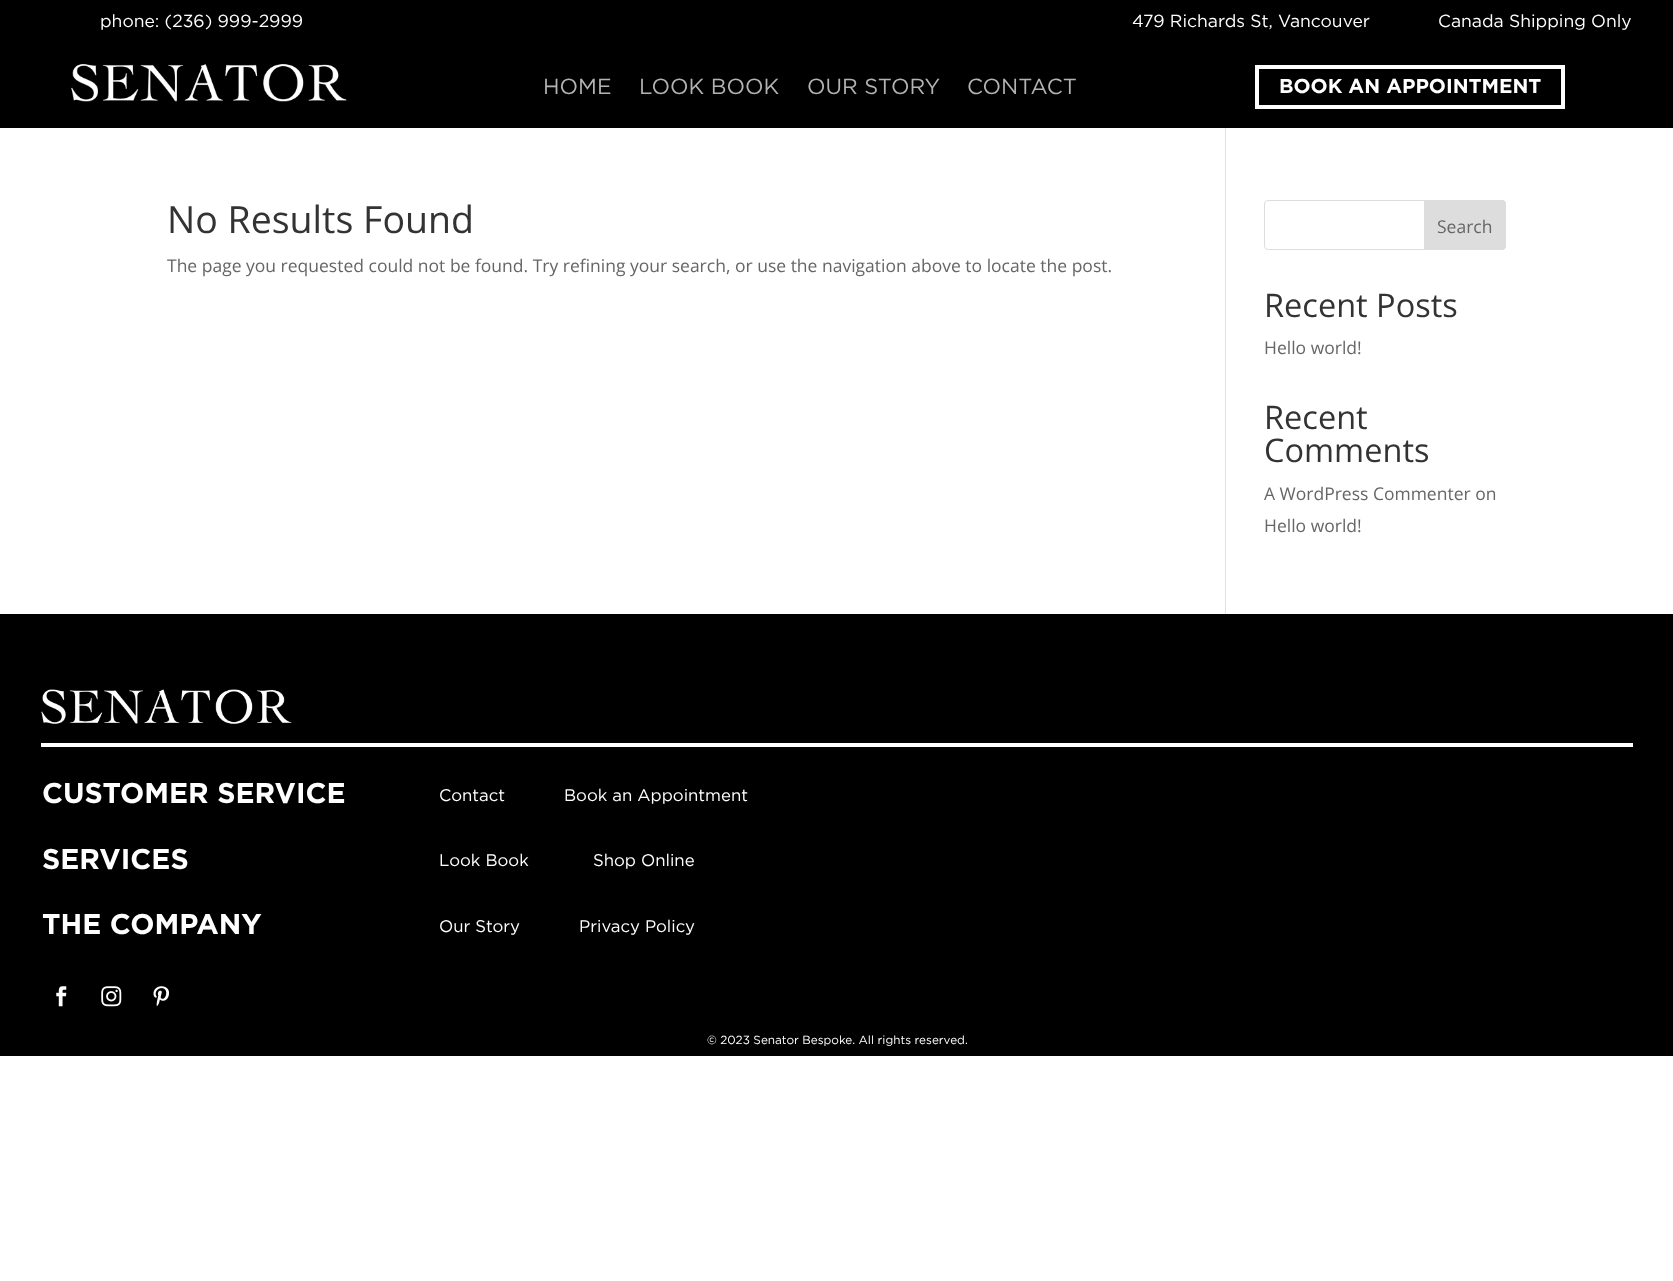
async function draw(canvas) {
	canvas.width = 1673;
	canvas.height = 1281;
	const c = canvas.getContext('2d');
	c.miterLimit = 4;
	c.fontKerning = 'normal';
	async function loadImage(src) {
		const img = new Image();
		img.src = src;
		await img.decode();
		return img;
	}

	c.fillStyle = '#fff';
	c.fillRect(0, 0, 1673, 1281);
	c.fillStyle = '#000';
	c.fillRect(0, 0, 1673, 128);
	c.font = '17.5px Gotham';
	c.fillStyle = '#fff';
	for (const [text, x, y] of [
		['phone: (236) 999-2999', 100, 27],
		['479 Richards St, Vancouver', 1132, 27],
		['Canada Shipping Only', 1438, 27],
	]) {
		c.fillText(text, x, y);
	}
	c.drawImage(await loadImage('img1.png'), 71, 64, 276, 38);
	c.font = '21.75px Gotham';
	c.fillStyle = '#b3b3b3';
	for (const [text, x, y] of [
		['HOME', 543, 94],
		['LOOK BOOK', 639, 94],
		['OUR STORY', 807, 94],
		['CONTACT', 967, 94],
	]) {
		c.fillText(text, x, y);
	}
	c.strokeStyle = '#fff';
	c.lineWidth = 4;
	c.strokeRect(1257, 67, 306, 40);
	c.font = 'bold 20.1px Gotham';
	c.fillStyle = '#fff';
	c.fillText('BOOK AN APPOINTMENT', 1279, 93);
	c.fillStyle = '#e2e2e2';
	c.fillRect(1225, 128, 1, 486);
	c.font = '37.5px Open Sans';
	c.fillStyle = '#333';
	c.fillText('No Results Found', 167, 233);
	c.font = '17.5px Open Sans';
	c.fillStyle = '#666';
	c.fillText('The page you requested could not be found. Try refining your search, or use the navigation above to locate the post.', 167, 272);
	c.beginPath();
	c.roundRect(1264.5, 200.5, 241, 49, 3.5);
	c.strokeStyle = '#ddd';
	c.lineWidth = 1;
	c.stroke();
	c.fillStyle = '#ddd';
	c.beginPath();
	c.roundRect(1424.5, 200.5, 81, 49, [0, 3.5, 3.5, 0]);
	c.fill();
	c.stroke();
	c.fillStyle = '#666';
	c.fillText('Search', 1437, 233);
	c.font = '32.5px Open Sans';
	c.fillStyle = '#333';
	c.fillText('Recent Posts', 1264, 317);
	c.font = '17.5px Open Sans';
	c.fillStyle = '#666';
	c.fillText('Hello world!', 1264, 354);
	c.font = '32.5px Open Sans';
	c.fillStyle = '#333';
	c.fillText('Recent', 1264, 429);
	c.fillText('Comments', 1264, 462);
	c.font = '17.5px Open Sans';
	c.fillStyle = '#666';
	c.fillText('A WordPress Commenter on', 1264, 500);
	c.fillText('Hello world!', 1264, 532);
	c.fillStyle = '#000';
	c.fillRect(0, 614, 1673, 442);
	c.drawImage(await loadImage('img2.png'), 41, 689, 251, 35);
	c.fillStyle = '#fff';
	c.fillRect(41, 743, 1592, 4);
	c.font = 'bold 28.5px Gotham';
	c.fillText('CUSTOMER SERVICE', 42, 803);
	c.font = '16.75px Gotham';
	c.fillText('Contact', 439, 801);
	c.fillText('Book an Appointment', 564, 801);
	c.font = 'bold 28.5px Gotham';
	c.fillText('SERVICES', 42, 869);
	c.font = '16.75px Gotham';
	c.fillText('Look Book', 439, 866);
	c.fillText('Shop Online', 593, 866);
	c.font = 'bold 28.5px Gotham';
	c.fillText('THE COMPANY', 42, 934);
	c.font = '16.75px Gotham';
	c.fillText('Our Story', 439, 932);
	c.fillText('Privacy Policy', 579, 932);
	c.drawImage(await loadImage('img3.png'), 56, 986, 11, 21);
	c.drawImage(await loadImage('img4.png'), 101, 986, 21, 21);
	c.drawImage(await loadImage('img5.png'), 153, 986, 16, 21);
	c.font = '11.75px Gotham';
	c.fillText('© 2023 Senator Bespoke. All rights reserved.', 707, 1044);
}

draw(document.querySelector('canvas'));
